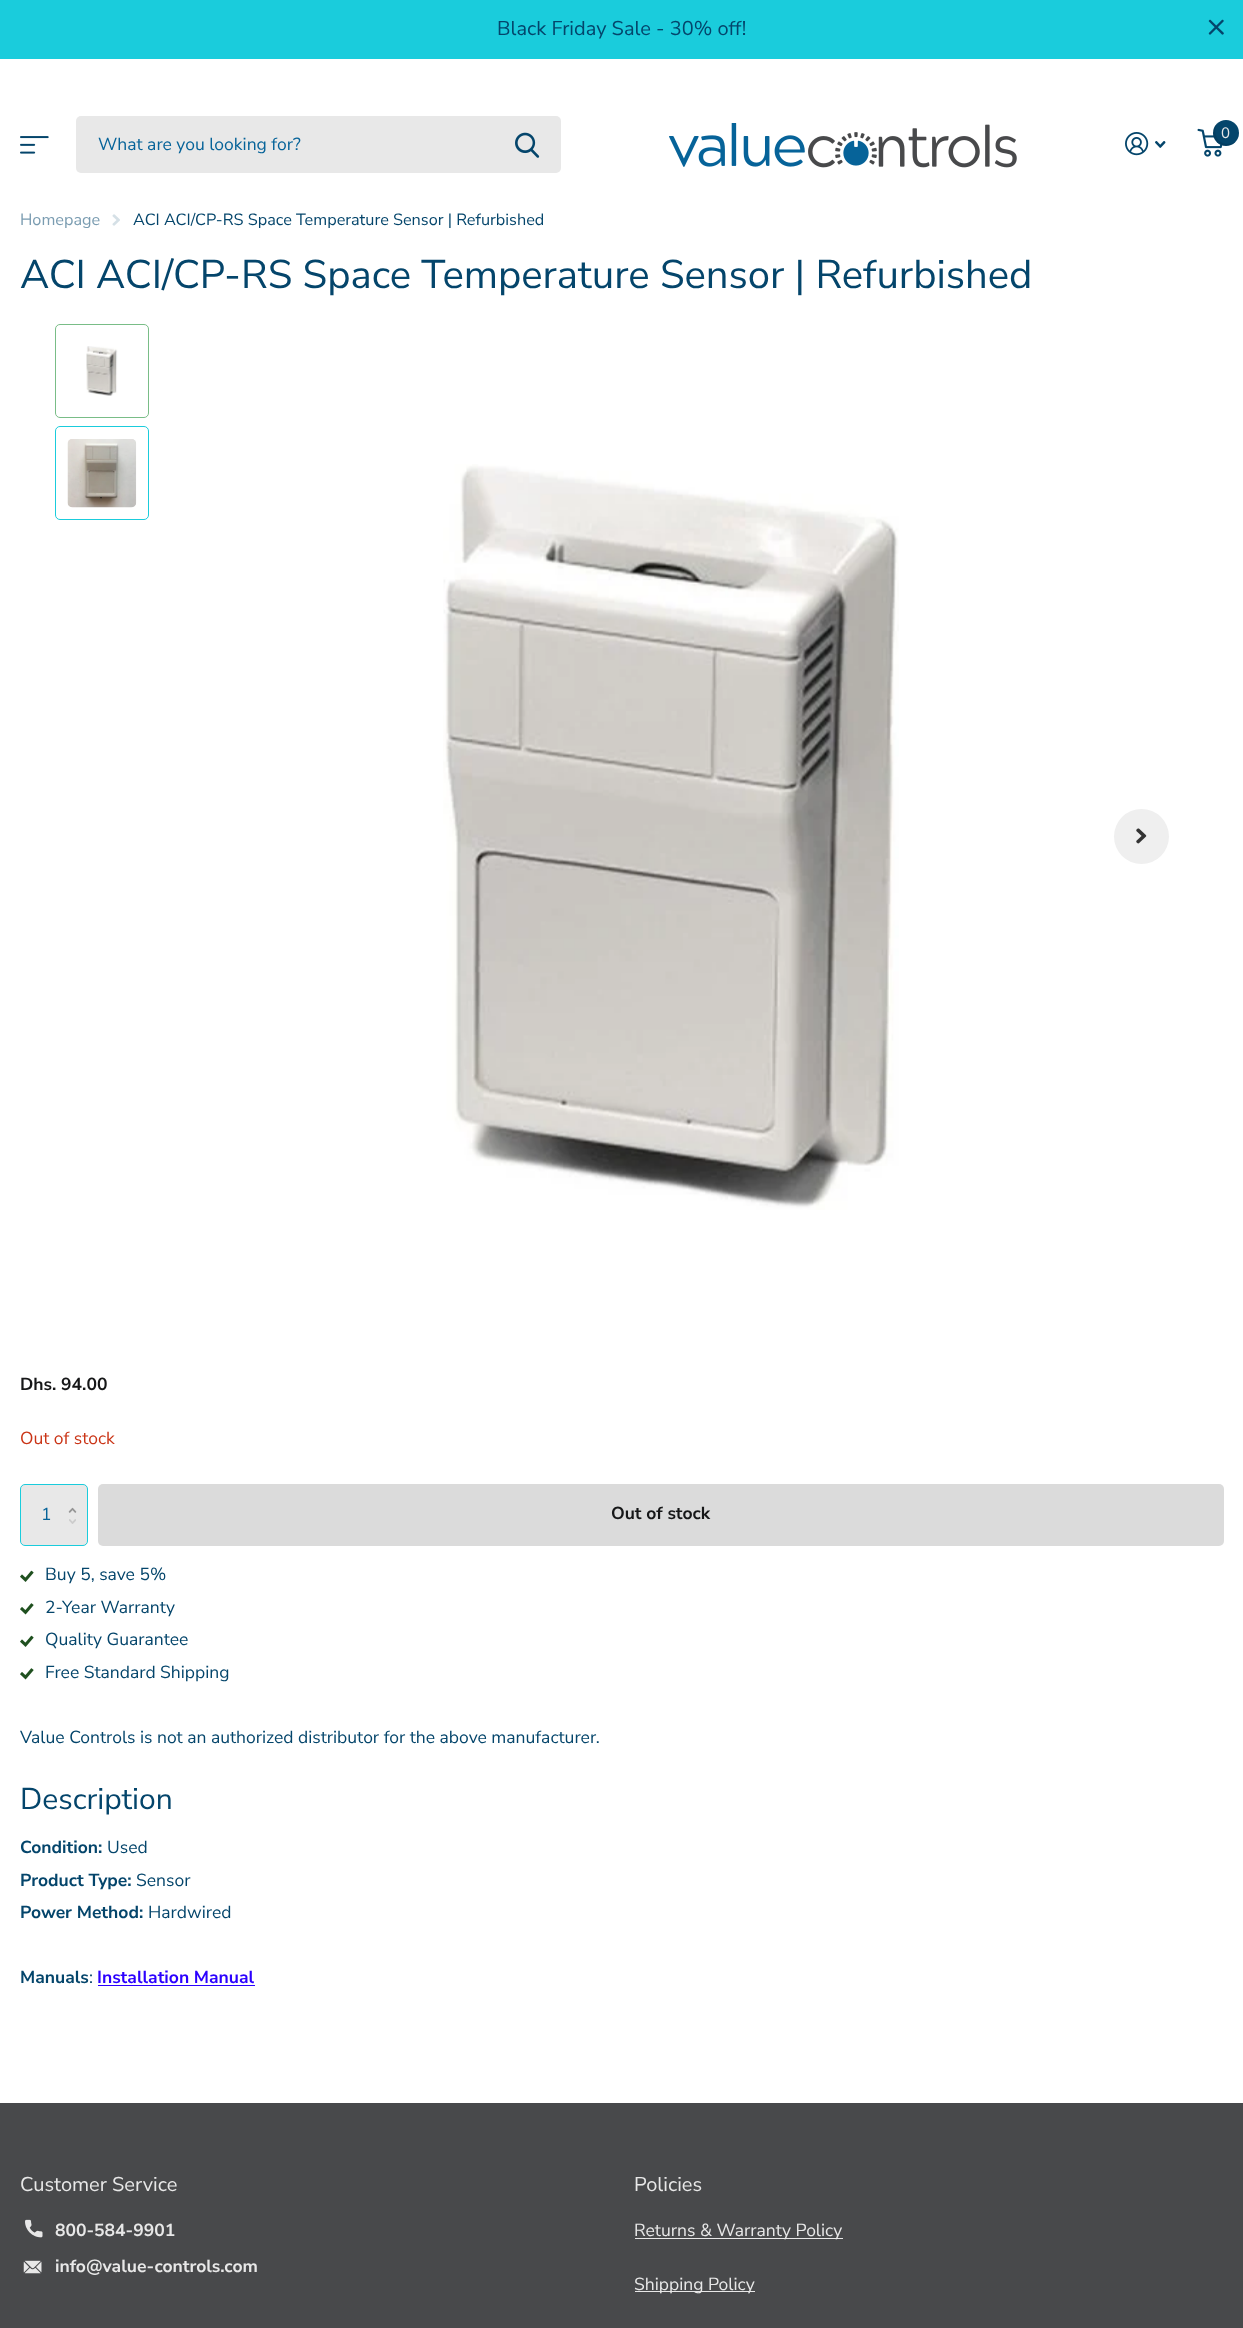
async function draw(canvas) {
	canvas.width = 1243;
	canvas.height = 2328;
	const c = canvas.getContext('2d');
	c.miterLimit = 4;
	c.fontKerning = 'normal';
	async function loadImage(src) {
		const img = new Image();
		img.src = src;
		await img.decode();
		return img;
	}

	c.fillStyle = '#1accdc';
	c.fillRect(0, 0, 1243, 2328);
	c.font = '20px Nunito Sans';
	c.fillStyle = '#04456b';
	c.fillText('Black Friday Sale - 30% off!', 497, 35);
	c.drawImage(await loadImage('img1.png'), 1208, 19, 16, 16);
	c.fillStyle = '#fff';
	c.fillRect(0, 59, 1243, 2044);
	c.drawImage(await loadImage('img2.png'), 20, 136, 29, 18);
	c.drawImage(await loadImage('img3.png'), 1125, 132, 24, 24);
	c.drawImage(await loadImage('img4.png'), 1155, 141, 11, 7);
	c.drawImage(await loadImage('img5.png'), 1197, 128, 26, 29);
	c.fillStyle = '#04456b';
	c.beginPath();
	c.arc(1226, 133, 13, 0, 2 * Math.PI);
	c.fill();
	c.fillStyle = '#0000001a';
	c.beginPath();
	c.moveTo(1235.5, 141.5);
	c.bezierCurveTo(1233.5, 143, 1231, 144, 1228, 144);
	c.bezierCurveTo(1216, 144, 1212.5, 130.5, 1217.5, 123);
	c.bezierCurveTo(1212, 128, 1211.5, 137, 1217, 142);
	c.bezierCurveTo(1222, 147.5, 1231, 147, 1235.5, 141.5);
	c.closePath();
	c.fill();
	c.font = '15px Nunito Sans';
	c.fillStyle = '#e8e8e8';
	c.fillText('0', 1221, 138);
	c.beginPath();
	c.roundRect(76, 116, 485, 57, 5);
	c.fill();
	c.font = '17.5px Nunito Sans';
	c.fillStyle = '#066399';
	c.fillText('What are you looking for?', 98, 150);
	c.drawImage(await loadImage('img6.png'), 515, 132, 25, 26);
	c.drawImage(await loadImage('img7.png'), 669, 123, 348, 45);
	c.font = '16.25px Nunito Sans';
	c.fillStyle = '#7a9cb1';
	c.fillText('Homepage', 20, 225);
	c.drawImage(await loadImage('img8.png'), 112, 214, 8, 12);
	c.fillStyle = '#04456b';
	c.fillText('ACI ACI/CP-RS Space Temperature Sensor | Refurbished', 133, 225);
	c.font = '40px Nunito Sans';
	c.fillText('ACI ACI/CP-RS Space Temperature Sensor | Refurbished', 20, 288);
	c.beginPath();
	c.roundRect(55.5, 324.5, 93, 93, 4.5);
	c.strokeStyle = '#79bd87';
	c.stroke();
	c.drawImage(await loadImage('img9.png'), 86, 346, 32, 50);
	c.beginPath();
	c.roundRect(55.5, 426.5, 93, 93, 4.5);
	c.strokeStyle = '#1accdc';
	c.stroke();
	c.drawImage(await loadImage('img10.png'), 67, 439, 70, 69);
	c.fillStyle = '#efefef';
	c.beginPath();
	c.arc(1141.5, 836.5, 27.5, 0, 2 * Math.PI);
	c.fill();
	c.drawImage(await loadImage('img11.png'), 1136, 828, 11, 16);
	c.drawImage(await loadImage('img12.png'), 443, 464, 456, 746);
	c.font = 'bold 17.5px Nunito Sans';
	c.fillStyle = '#161718';
	c.fillText('Dhs. 94.00', 20, 1390);
	c.font = '17.5px Nunito Sans';
	c.fillStyle = '#ca3416';
	c.fillText('Out of stock', 20, 1444);
	c.fillStyle = '#e8e8e8';
	c.beginPath();
	c.roundRect(20.5, 1484.5, 67, 61, 4.5);
	c.fill();
	c.stroke();
	c.fillStyle = '#066399';
	c.fillText('1', 41, 1520);
	c.drawImage(await loadImage('img13.png'), 68, 1507, 9, 6);
	c.drawImage(await loadImage('img14.png'), 69, 1519, 7, 5);
	c.fillStyle = '#dbdbdb';
	c.beginPath();
	c.roundRect(98, 1484, 1126, 62, 5);
	c.fill();
	c.font = 'bold 17.5px Nunito Sans';
	c.fillStyle = '#161718';
	c.fillText('Out of stock', 611, 1519);
	c.drawImage(await loadImage('img15.png'), 20, 1570, 14, 12);
	c.font = '17.5px Nunito Sans';
	c.fillStyle = '#04456b';
	c.fillText('Buy 5, save 5%', 45, 1580);
	c.drawImage(await loadImage('img16.png'), 20, 1603, 14, 12);
	c.fillText('2-Year Warranty', 45, 1613);
	c.drawImage(await loadImage('img15.png'), 20, 1635, 14, 12);
	c.fillText('Quality Guarantee', 45, 1645);
	c.drawImage(await loadImage('img16.png'), 20, 1668, 14, 12);
	c.fillText('Free Standard Shipping', 45, 1678);
	c.fillText('Value Controls is not an authorized distributor for the above manufacturer.', 20, 1743);
	c.font = '30px Nunito Sans';
	c.fillText('Description', 20, 1809);
	c.font = 'bold 17.5px Nunito Sans';
	c.fillText('Condition:', 20, 1853);
	c.font = '17.5px Nunito Sans';
	c.fillText('Used', 107, 1853);
	c.font = 'bold 17.5px Nunito Sans';
	c.fillText('Product Type:', 20, 1886);
	c.font = '17.5px Nunito Sans';
	c.fillText('Sensor', 136, 1886);
	c.font = 'bold 17.5px Nunito Sans';
	c.fillText('Power Method:', 20, 1918);
	c.font = '17.5px Nunito Sans';
	c.fillText('Hardwired', 148, 1918);
	c.font = 'bold 17.5px Nunito Sans';
	c.fillText('Manuals', 20, 1983);
	c.font = '17.5px Nunito Sans';
	c.fillText(':', 89, 1983);
	c.font = 'bold 17.5px Nunito Sans';
	c.fillStyle = '#2b00ff';
	c.fillText('Installation Manual', 97, 1983);
	c.fillRect(98, 1985, 157, 1);
	c.fillStyle = '#48494b';
	c.fillRect(0, 2103, 1243, 225);
	c.font = '20px Nunito Sans';
	c.fillStyle = '#e8e8e8';
	c.fillText('Customer Service', 20, 2191);
	c.drawImage(await loadImage('img17.png'), 25, 2219, 18, 19);
	c.font = 'bold 17.5px Nunito Sans';
	c.fillText('800-584-9901', 55, 2236);
	c.drawImage(await loadImage('img18.png'), 23, 2260, 19, 14);
	c.fillText('info@value-controls.com', 55, 2272);
	c.font = '20px Nunito Sans';
	c.fillText('Policies', 634, 2191);
	c.fillRect(635, 2238, 208, 1);
	c.font = '17.5px Nunito Sans';
	c.fillText('Returns & Warranty Policy', 634, 2236);
	c.fillRect(635, 2291, 120, 1);
	c.fillText('Shipping Policy', 634, 2290);
}

draw(document.querySelector('canvas'));
